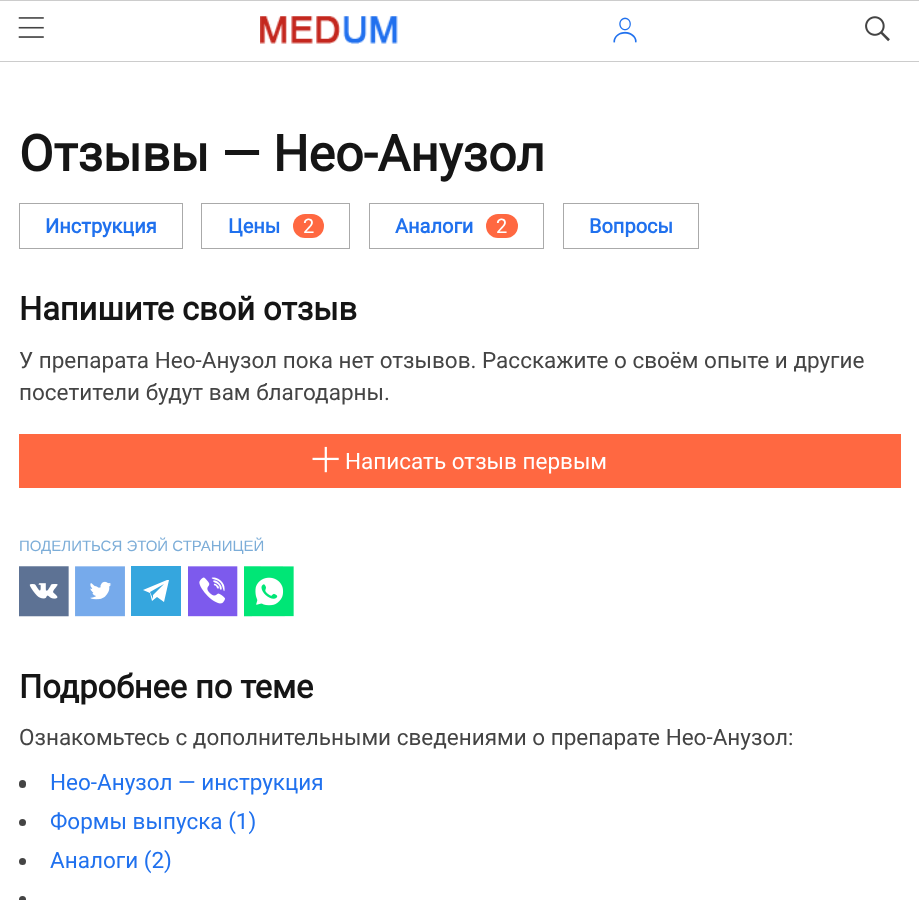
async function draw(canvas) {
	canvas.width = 919;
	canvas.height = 900;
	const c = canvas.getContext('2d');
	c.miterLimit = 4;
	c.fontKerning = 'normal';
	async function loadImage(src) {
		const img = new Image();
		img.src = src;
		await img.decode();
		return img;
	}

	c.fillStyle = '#fff';
	c.fillRect(0, 0, 919, 900);
	c.fillStyle = '#ccc';
	c.fillRect(0, 0, 919, 1);
	c.fillRect(0, 61, 919, 1);
	c.drawImage(await loadImage('img1.png'), 18, 17, 26, 21);
	c.drawImage(await loadImage('img2.png'), 260, 16, 138, 28);
	c.drawImage(await loadImage('img3.png'), 613, 17, 24, 26);
	c.drawImage(await loadImage('img4.png'), 865, 16, 25, 26);
	c.font = 'bold 50px Roboto';
	c.fillStyle = '#151515';
	c.fillText('Отзывы — Нео-Анузол', 19, 171);
	c.strokeStyle = '#aaa';
	c.strokeRect(19.5, 203.5, 163, 45);
	c.font = 'bold 20px Roboto';
	c.fillStyle = '#2071ee';
	c.fillText('Инструкция', 45, 233);
	c.strokeRect(201.5, 203.5, 148, 45);
	c.fillText('Цены', 228, 233);
	c.fillStyle = '#ff6841';
	c.beginPath();
	c.roundRect(293, 214, 31, 24, 12);
	c.fill();
	c.font = '20px Roboto';
	c.fillStyle = '#fff';
	c.fillText('2', 303, 233);
	c.strokeRect(369.5, 203.5, 174, 45);
	c.font = 'bold 20px Roboto';
	c.fillStyle = '#2071ee';
	c.fillText('Аналоги', 395, 233);
	c.fillStyle = '#ff6841';
	c.beginPath();
	c.roundRect(486, 214, 32, 24, 12);
	c.fill();
	c.font = '20px Roboto';
	c.fillStyle = '#fff';
	c.fillText('2', 496, 233);
	c.strokeRect(563.5, 203.5, 135, 45);
	c.font = 'bold 20px Roboto';
	c.fillStyle = '#2071ee';
	c.fillText('Вопросы', 589, 233);
	c.font = 'bold 32.5px Roboto';
	c.fillStyle = '#151515';
	c.fillText('Напишите свой отзыв', 19, 320);
	c.font = '22.5px Roboto';
	c.fillStyle = '#444';
	c.fillText('У препарата Нео-Анузол пока нет отзывов. Расскажите о своём опыте и другие', 19, 368);
	c.fillText('посетители будут вам благодарны.', 19, 400);
	c.fillStyle = '#ff6841';
	c.fillRect(19, 434, 882, 54);
	c.drawImage(await loadImage('img5.png'), 312, 446, 27, 27);
	c.fillStyle = '#fff';
	c.fillText('Написать отзыв первым', 345, 469);
	c.font = '15px Liberation Sans';
	c.fillStyle = '#7cadd8';
	c.fillText('ПОДЕЛИТЬСЯ ЭТОЙ СТРАНИЦЕЙ', 19, 551);
	c.drawImage(await loadImage('img6.png'), 19, 566, 50, 51);
	c.drawImage(await loadImage('img7.png'), 75, 566, 50, 51);
	c.fillStyle = '#35a6de';
	c.beginPath();
	c.moveTo(131, 566);
	c.lineTo(131, 616);
	c.lineTo(181, 616);
	c.lineTo(181, 566);
	c.closePath();
	c.moveTo(169, 580);
	c.lineTo(164, 602);
	c.lineTo(157, 597);
	c.lineTo(152, 601);
	c.lineTo(150, 593);
	c.lineTo(143, 590);
	c.lineTo(167, 580);
	c.closePath();
	c.moveTo(164, 584);
	c.lineTo(150, 592);
	c.lineTo(153, 599);
	c.lineTo(153, 595);
	c.closePath();
	c.fill();
	c.drawImage(await loadImage('img8.png'), 188, 566, 50, 51);
	c.drawImage(await loadImage('img9.png'), 244, 566, 50, 51);
	c.font = 'bold 32.5px Roboto';
	c.fillStyle = '#151515';
	c.fillText('Подробнее по теме', 19, 698);
	c.font = '22.5px Roboto';
	c.fillStyle = '#444';
	c.fillText('Ознакомьтесь с дополнительными сведениями о препарате Нео-Анузол:', 19, 745);
	c.beginPath();
	c.roundRect(19, 780, 7, 8, 3.5);
	c.fill();
	c.fillStyle = '#2071ee';
	c.fillText('Нео-Анузол — инструкция', 50, 790);
	c.fillStyle = '#444';
	c.beginPath();
	c.arc(22.5, 822.5, 3.5, 0, 2 * Math.PI);
	c.fill();
	c.fillStyle = '#2071ee';
	c.fillText('Формы выпуска (1)', 50, 829);
	c.fillStyle = '#444';
	c.beginPath();
	c.arc(22.5, 861.5, 3.5, 0, 2 * Math.PI);
	c.fill();
	c.fillStyle = '#2071ee';
	c.fillText('Аналоги (2)', 50, 868);
	c.fillStyle = '#444';
	c.beginPath();
	c.roundRect(19, 896, 7, 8, 3.5);
	c.fill();
}

draw(document.querySelector('canvas'));
